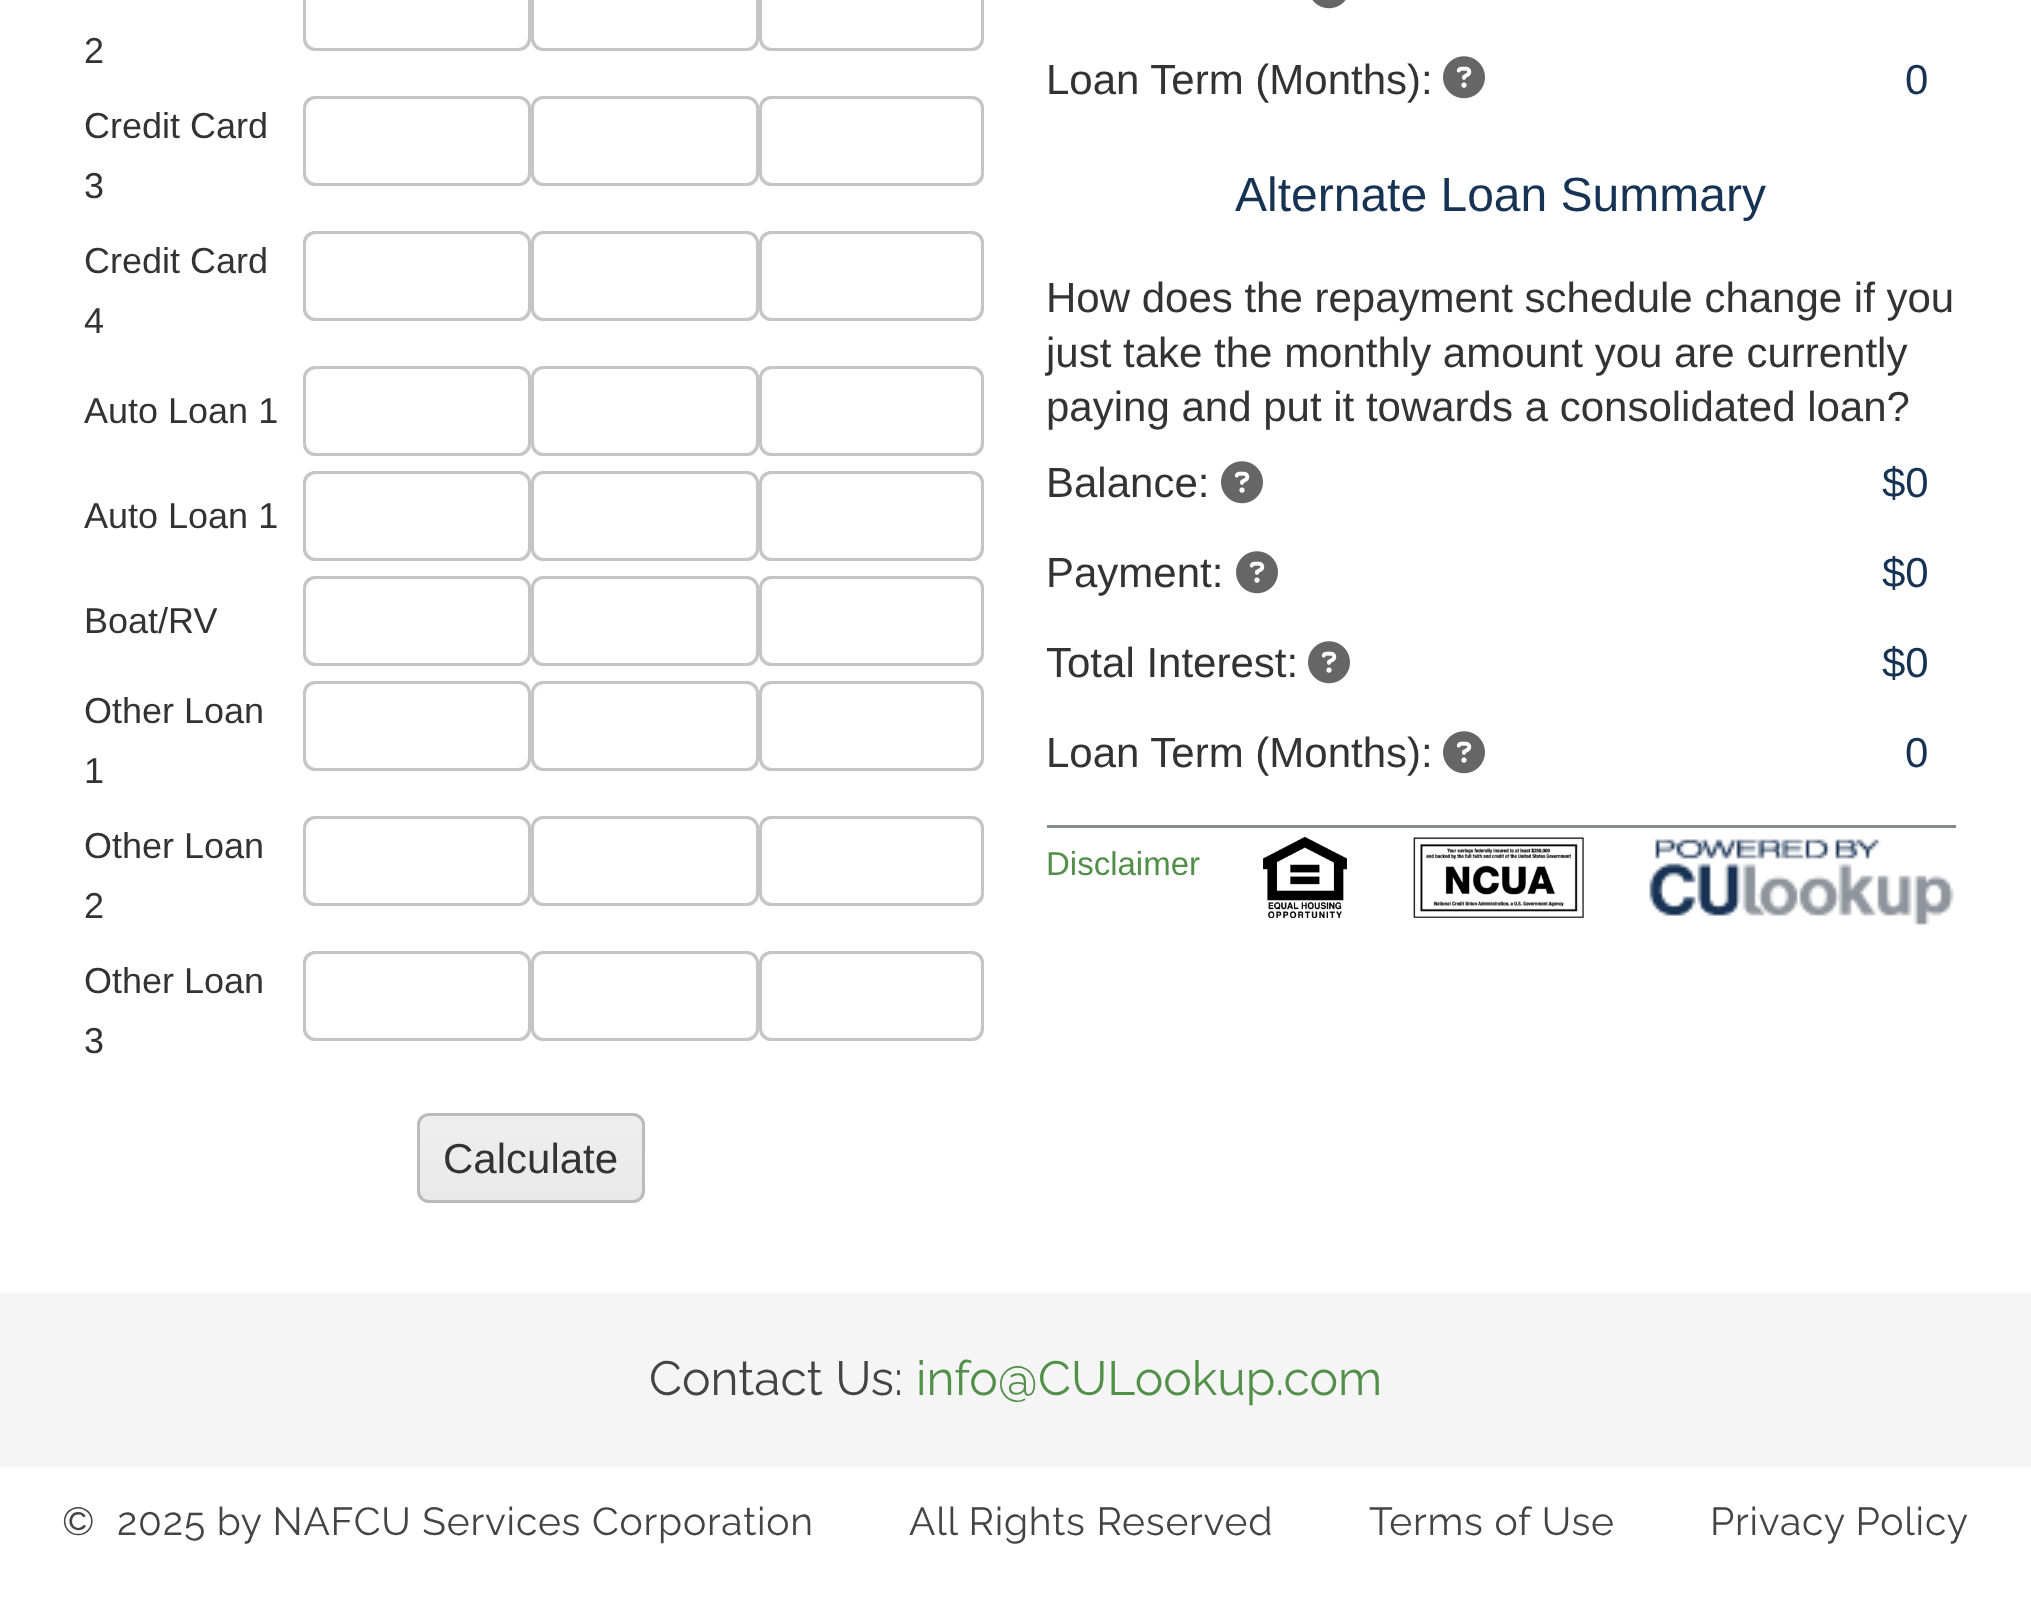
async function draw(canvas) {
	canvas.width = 2031;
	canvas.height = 1614;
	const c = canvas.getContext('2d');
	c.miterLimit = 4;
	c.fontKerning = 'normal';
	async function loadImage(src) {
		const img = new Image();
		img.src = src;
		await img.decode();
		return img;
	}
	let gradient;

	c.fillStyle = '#fff';
	c.fillRect(0, 0, 2031, 1614);
	c.font = '36px Liberation Sans';
	c.fillStyle = '#333';
	c.fillText('2', 84, 63);
	c.fillStyle = '#ececec';
	c.beginPath();
	c.roundRect(304.5, -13.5, 225, 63, 10.5);
	c.fill();
	c.strokeStyle = '#c5c5c5';
	c.lineWidth = 3;
	c.stroke();
	c.fillStyle = '#fff';
	c.beginPath();
	c.roundRect(306, -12, 222, 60, 12);
	c.fill();
	c.fillStyle = '#ececec';
	c.beginPath();
	c.roundRect(532.5, -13.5, 225, 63, 10.5);
	c.fill();
	c.stroke();
	c.fillStyle = '#fff';
	c.beginPath();
	c.roundRect(534, -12, 222, 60, 12);
	c.fill();
	c.fillStyle = '#ececec';
	c.beginPath();
	c.roundRect(760.5, -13.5, 222, 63, 10.5);
	c.fill();
	c.stroke();
	c.fillStyle = '#fff';
	c.beginPath();
	c.roundRect(762, -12, 219, 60, 12);
	c.fill();
	c.fillStyle = '#333';
	c.fillText('Credit Card', 84, 138);
	c.fillText('3', 84, 198);
	c.fillStyle = '#ececec';
	c.beginPath();
	c.roundRect(303, 96, 228, 90, 12);
	c.fill();
	c.save();
	c.beginPath();
	c.roundRect(303, 96, 228, 90, 12);
	c.clip();
	gradient = c.createLinearGradient(417, 99, 417, 183);
	gradient.addColorStop(0, '#ffffff40');
	gradient.addColorStop(1, '#ffffff00');
	c.fillStyle = gradient;
	c.fillRect(303, 99, 228, 77);
	c.restore();
	c.beginPath();
	c.roundRect(304.5, 97.5, 225, 87, 10.5);
	c.stroke();
	c.fillStyle = '#fff';
	c.beginPath();
	c.roundRect(306, 99, 222, 84, 12);
	c.fill();
	c.fillStyle = '#ececec';
	c.beginPath();
	c.roundRect(531, 96, 228, 90, 12);
	c.fill();
	c.save();
	c.beginPath();
	c.roundRect(531, 96, 228, 90, 12);
	c.clip();
	gradient = c.createLinearGradient(645, 99, 645, 183);
	gradient.addColorStop(0, '#ffffff40');
	gradient.addColorStop(1, '#ffffff00');
	c.fillStyle = gradient;
	c.fillRect(531, 99, 228, 77);
	c.restore();
	c.beginPath();
	c.roundRect(532.5, 97.5, 225, 87, 10.5);
	c.stroke();
	c.fillStyle = '#fff';
	c.beginPath();
	c.roundRect(534, 99, 222, 84, 12);
	c.fill();
	c.fillStyle = '#ececec';
	c.beginPath();
	c.roundRect(759, 96, 225, 90, 12);
	c.fill();
	c.save();
	c.beginPath();
	c.roundRect(759, 96, 225, 90, 12);
	c.clip();
	gradient = c.createLinearGradient(872, 99, 872, 183);
	gradient.addColorStop(0, '#ffffff40');
	gradient.addColorStop(1, '#ffffff00');
	c.fillStyle = gradient;
	c.fillRect(759, 99, 225, 77);
	c.restore();
	c.beginPath();
	c.roundRect(760.5, 97.5, 222, 87, 10.5);
	c.stroke();
	c.fillStyle = '#fff';
	c.beginPath();
	c.roundRect(762, 99, 219, 84, 12);
	c.fill();
	c.fillStyle = '#333';
	c.fillText('Credit Card', 84, 273);
	c.fillText('4', 84, 333);
	c.fillStyle = '#ececec';
	c.beginPath();
	c.roundRect(303, 231, 228, 90, 12);
	c.fill();
	c.save();
	c.beginPath();
	c.roundRect(303, 231, 228, 90, 12);
	c.clip();
	gradient = c.createLinearGradient(417, 234, 417, 318);
	gradient.addColorStop(0, '#ffffff40');
	gradient.addColorStop(1, '#ffffff00');
	c.fillStyle = gradient;
	c.fillRect(303, 234, 228, 77);
	c.restore();
	c.beginPath();
	c.roundRect(304.5, 232.5, 225, 87, 10.5);
	c.stroke();
	c.fillStyle = '#fff';
	c.beginPath();
	c.roundRect(306, 234, 222, 84, 12);
	c.fill();
	c.fillStyle = '#ececec';
	c.beginPath();
	c.roundRect(531, 231, 228, 90, 12);
	c.fill();
	c.save();
	c.beginPath();
	c.roundRect(531, 231, 228, 90, 12);
	c.clip();
	gradient = c.createLinearGradient(645, 234, 645, 318);
	gradient.addColorStop(0, '#ffffff40');
	gradient.addColorStop(1, '#ffffff00');
	c.fillStyle = gradient;
	c.fillRect(531, 234, 228, 77);
	c.restore();
	c.beginPath();
	c.roundRect(532.5, 232.5, 225, 87, 10.5);
	c.stroke();
	c.fillStyle = '#fff';
	c.beginPath();
	c.roundRect(534, 234, 222, 84, 12);
	c.fill();
	c.fillStyle = '#ececec';
	c.beginPath();
	c.roundRect(759, 231, 225, 90, 12);
	c.fill();
	c.save();
	c.beginPath();
	c.roundRect(759, 231, 225, 90, 12);
	c.clip();
	gradient = c.createLinearGradient(872, 234, 872, 318);
	gradient.addColorStop(0, '#ffffff40');
	gradient.addColorStop(1, '#ffffff00');
	c.fillStyle = gradient;
	c.fillRect(759, 234, 225, 77);
	c.restore();
	c.beginPath();
	c.roundRect(760.5, 232.5, 222, 87, 10.5);
	c.stroke();
	c.fillStyle = '#fff';
	c.beginPath();
	c.roundRect(762, 234, 219, 84, 12);
	c.fill();
	c.fillStyle = '#333';
	c.fillText('Auto Loan 1', 84, 423);
	c.fillStyle = '#ececec';
	c.beginPath();
	c.roundRect(303, 366, 228, 90, 12);
	c.fill();
	c.save();
	c.beginPath();
	c.roundRect(303, 366, 228, 90, 12);
	c.clip();
	gradient = c.createLinearGradient(417, 369, 417, 453);
	gradient.addColorStop(0, '#ffffff40');
	gradient.addColorStop(1, '#ffffff00');
	c.fillStyle = gradient;
	c.fillRect(303, 369, 228, 77);
	c.restore();
	c.beginPath();
	c.roundRect(304.5, 367.5, 225, 87, 10.5);
	c.stroke();
	c.fillStyle = '#fff';
	c.beginPath();
	c.roundRect(306, 369, 222, 84, 12);
	c.fill();
	c.fillStyle = '#ececec';
	c.beginPath();
	c.roundRect(531, 366, 228, 90, 12);
	c.fill();
	c.save();
	c.beginPath();
	c.roundRect(531, 366, 228, 90, 12);
	c.clip();
	gradient = c.createLinearGradient(645, 369, 645, 453);
	gradient.addColorStop(0, '#ffffff40');
	gradient.addColorStop(1, '#ffffff00');
	c.fillStyle = gradient;
	c.fillRect(531, 369, 228, 77);
	c.restore();
	c.beginPath();
	c.roundRect(532.5, 367.5, 225, 87, 10.5);
	c.stroke();
	c.fillStyle = '#fff';
	c.beginPath();
	c.roundRect(534, 369, 222, 84, 12);
	c.fill();
	c.fillStyle = '#ececec';
	c.beginPath();
	c.roundRect(759, 366, 225, 90, 12);
	c.fill();
	c.save();
	c.beginPath();
	c.roundRect(759, 366, 225, 90, 12);
	c.clip();
	gradient = c.createLinearGradient(872, 369, 872, 453);
	gradient.addColorStop(0, '#ffffff40');
	gradient.addColorStop(1, '#ffffff00');
	c.fillStyle = gradient;
	c.fillRect(759, 369, 225, 77);
	c.restore();
	c.beginPath();
	c.roundRect(760.5, 367.5, 222, 87, 10.5);
	c.stroke();
	c.fillStyle = '#fff';
	c.beginPath();
	c.roundRect(762, 369, 219, 84, 12);
	c.fill();
	c.fillStyle = '#333';
	c.fillText('Auto Loan 1', 84, 528);
	c.fillStyle = '#ececec';
	c.beginPath();
	c.roundRect(303, 471, 228, 90, 12);
	c.fill();
	c.save();
	c.beginPath();
	c.roundRect(303, 471, 228, 90, 12);
	c.clip();
	gradient = c.createLinearGradient(417, 474, 417, 558);
	gradient.addColorStop(0, '#ffffff40');
	gradient.addColorStop(1, '#ffffff00');
	c.fillStyle = gradient;
	c.fillRect(303, 474, 228, 77);
	c.restore();
	c.beginPath();
	c.roundRect(304.5, 472.5, 225, 87, 10.5);
	c.stroke();
	c.fillStyle = '#fff';
	c.beginPath();
	c.roundRect(306, 474, 222, 84, 12);
	c.fill();
	c.fillStyle = '#ececec';
	c.beginPath();
	c.roundRect(531, 471, 228, 90, 12);
	c.fill();
	c.save();
	c.beginPath();
	c.roundRect(531, 471, 228, 90, 12);
	c.clip();
	gradient = c.createLinearGradient(645, 474, 645, 558);
	gradient.addColorStop(0, '#ffffff40');
	gradient.addColorStop(1, '#ffffff00');
	c.fillStyle = gradient;
	c.fillRect(531, 474, 228, 77);
	c.restore();
	c.beginPath();
	c.roundRect(532.5, 472.5, 225, 87, 10.5);
	c.stroke();
	c.fillStyle = '#fff';
	c.beginPath();
	c.roundRect(534, 474, 222, 84, 12);
	c.fill();
	c.fillStyle = '#ececec';
	c.beginPath();
	c.roundRect(759, 471, 225, 90, 12);
	c.fill();
	c.save();
	c.beginPath();
	c.roundRect(759, 471, 225, 90, 12);
	c.clip();
	gradient = c.createLinearGradient(872, 474, 872, 558);
	gradient.addColorStop(0, '#ffffff40');
	gradient.addColorStop(1, '#ffffff00');
	c.fillStyle = gradient;
	c.fillRect(759, 474, 225, 77);
	c.restore();
	c.beginPath();
	c.roundRect(760.5, 472.5, 222, 87, 10.5);
	c.stroke();
	c.fillStyle = '#fff';
	c.beginPath();
	c.roundRect(762, 474, 219, 84, 12);
	c.fill();
	c.fillStyle = '#333';
	c.fillText('Boat/RV', 84, 633);
	c.fillStyle = '#ececec';
	c.beginPath();
	c.roundRect(303, 576, 228, 90, 12);
	c.fill();
	c.save();
	c.beginPath();
	c.roundRect(303, 576, 228, 90, 12);
	c.clip();
	gradient = c.createLinearGradient(417, 579, 417, 663);
	gradient.addColorStop(0, '#ffffff40');
	gradient.addColorStop(1, '#ffffff00');
	c.fillStyle = gradient;
	c.fillRect(303, 579, 228, 77);
	c.restore();
	c.beginPath();
	c.roundRect(304.5, 577.5, 225, 87, 10.5);
	c.stroke();
	c.fillStyle = '#fff';
	c.beginPath();
	c.roundRect(306, 579, 222, 84, 12);
	c.fill();
	c.fillStyle = '#ececec';
	c.beginPath();
	c.roundRect(531, 576, 228, 90, 12);
	c.fill();
	c.save();
	c.beginPath();
	c.roundRect(531, 576, 228, 90, 12);
	c.clip();
	gradient = c.createLinearGradient(645, 579, 645, 663);
	gradient.addColorStop(0, '#ffffff40');
	gradient.addColorStop(1, '#ffffff00');
	c.fillStyle = gradient;
	c.fillRect(531, 579, 228, 77);
	c.restore();
	c.beginPath();
	c.roundRect(532.5, 577.5, 225, 87, 10.5);
	c.stroke();
	c.fillStyle = '#fff';
	c.beginPath();
	c.roundRect(534, 579, 222, 84, 12);
	c.fill();
	c.fillStyle = '#ececec';
	c.beginPath();
	c.roundRect(759, 576, 225, 90, 12);
	c.fill();
	c.save();
	c.beginPath();
	c.roundRect(759, 576, 225, 90, 12);
	c.clip();
	gradient = c.createLinearGradient(872, 579, 872, 663);
	gradient.addColorStop(0, '#ffffff40');
	gradient.addColorStop(1, '#ffffff00');
	c.fillStyle = gradient;
	c.fillRect(759, 579, 225, 77);
	c.restore();
	c.beginPath();
	c.roundRect(760.5, 577.5, 222, 87, 10.5);
	c.stroke();
	c.fillStyle = '#fff';
	c.beginPath();
	c.roundRect(762, 579, 219, 84, 12);
	c.fill();
	c.fillStyle = '#333';
	c.fillText('Other Loan', 84, 723);
	c.fillText('1', 84, 783);
	c.fillStyle = '#ececec';
	c.beginPath();
	c.roundRect(303, 681, 228, 90, 12);
	c.fill();
	c.save();
	c.beginPath();
	c.roundRect(303, 681, 228, 90, 12);
	c.clip();
	gradient = c.createLinearGradient(417, 684, 417, 768);
	gradient.addColorStop(0, '#ffffff40');
	gradient.addColorStop(1, '#ffffff00');
	c.fillStyle = gradient;
	c.fillRect(303, 684, 228, 77);
	c.restore();
	c.beginPath();
	c.roundRect(304.5, 682.5, 225, 87, 10.5);
	c.stroke();
	c.fillStyle = '#fff';
	c.beginPath();
	c.roundRect(306, 684, 222, 84, 12);
	c.fill();
	c.fillStyle = '#ececec';
	c.beginPath();
	c.roundRect(531, 681, 228, 90, 12);
	c.fill();
	c.save();
	c.beginPath();
	c.roundRect(531, 681, 228, 90, 12);
	c.clip();
	gradient = c.createLinearGradient(645, 684, 645, 768);
	gradient.addColorStop(0, '#ffffff40');
	gradient.addColorStop(1, '#ffffff00');
	c.fillStyle = gradient;
	c.fillRect(531, 684, 228, 77);
	c.restore();
	c.beginPath();
	c.roundRect(532.5, 682.5, 225, 87, 10.5);
	c.stroke();
	c.fillStyle = '#fff';
	c.beginPath();
	c.roundRect(534, 684, 222, 84, 12);
	c.fill();
	c.fillStyle = '#ececec';
	c.beginPath();
	c.roundRect(759, 681, 225, 90, 12);
	c.fill();
	c.save();
	c.beginPath();
	c.roundRect(759, 681, 225, 90, 12);
	c.clip();
	gradient = c.createLinearGradient(872, 684, 872, 768);
	gradient.addColorStop(0, '#ffffff40');
	gradient.addColorStop(1, '#ffffff00');
	c.fillStyle = gradient;
	c.fillRect(759, 684, 225, 77);
	c.restore();
	c.beginPath();
	c.roundRect(760.5, 682.5, 222, 87, 10.5);
	c.stroke();
	c.fillStyle = '#fff';
	c.beginPath();
	c.roundRect(762, 684, 219, 84, 12);
	c.fill();
	c.fillStyle = '#333';
	c.fillText('Other Loan', 84, 858);
	c.fillText('2', 84, 918);
	c.fillStyle = '#ececec';
	c.beginPath();
	c.roundRect(303, 816, 228, 90, 12);
	c.fill();
	c.save();
	c.beginPath();
	c.roundRect(303, 816, 228, 90, 12);
	c.clip();
	gradient = c.createLinearGradient(417, 819, 417, 903);
	gradient.addColorStop(0, '#ffffff40');
	gradient.addColorStop(1, '#ffffff00');
	c.fillStyle = gradient;
	c.fillRect(303, 819, 228, 77);
	c.restore();
	c.beginPath();
	c.roundRect(304.5, 817.5, 225, 87, 10.5);
	c.stroke();
	c.fillStyle = '#fff';
	c.beginPath();
	c.roundRect(306, 819, 222, 84, 12);
	c.fill();
	c.fillStyle = '#ececec';
	c.beginPath();
	c.roundRect(531, 816, 228, 90, 12);
	c.fill();
	c.save();
	c.beginPath();
	c.roundRect(531, 816, 228, 90, 12);
	c.clip();
	gradient = c.createLinearGradient(645, 819, 645, 903);
	gradient.addColorStop(0, '#ffffff40');
	gradient.addColorStop(1, '#ffffff00');
	c.fillStyle = gradient;
	c.fillRect(531, 819, 228, 77);
	c.restore();
	c.beginPath();
	c.roundRect(532.5, 817.5, 225, 87, 10.5);
	c.stroke();
	c.fillStyle = '#fff';
	c.beginPath();
	c.roundRect(534, 819, 222, 84, 12);
	c.fill();
	c.fillStyle = '#ececec';
	c.beginPath();
	c.roundRect(759, 816, 225, 90, 12);
	c.fill();
	c.save();
	c.beginPath();
	c.roundRect(759, 816, 225, 90, 12);
	c.clip();
	gradient = c.createLinearGradient(872, 819, 872, 903);
	gradient.addColorStop(0, '#ffffff40');
	gradient.addColorStop(1, '#ffffff00');
	c.fillStyle = gradient;
	c.fillRect(759, 819, 225, 77);
	c.restore();
	c.beginPath();
	c.roundRect(760.5, 817.5, 222, 87, 10.5);
	c.stroke();
	c.fillStyle = '#fff';
	c.beginPath();
	c.roundRect(762, 819, 219, 84, 12);
	c.fill();
	c.fillStyle = '#333';
	c.fillText('Other Loan', 84, 993);
	c.fillText('3', 84, 1053);
	c.fillStyle = '#ececec';
	c.beginPath();
	c.roundRect(303, 951, 228, 90, 12);
	c.fill();
	c.save();
	c.beginPath();
	c.roundRect(303, 951, 228, 90, 12);
	c.clip();
	gradient = c.createLinearGradient(417, 954, 417, 1038);
	gradient.addColorStop(0, '#ffffff40');
	gradient.addColorStop(1, '#ffffff00');
	c.fillStyle = gradient;
	c.fillRect(303, 954, 228, 77);
	c.restore();
	c.beginPath();
	c.roundRect(304.5, 952.5, 225, 87, 10.5);
	c.stroke();
	c.fillStyle = '#fff';
	c.beginPath();
	c.roundRect(306, 954, 222, 84, 12);
	c.fill();
	c.fillStyle = '#ececec';
	c.beginPath();
	c.roundRect(531, 951, 228, 90, 12);
	c.fill();
	c.save();
	c.beginPath();
	c.roundRect(531, 951, 228, 90, 12);
	c.clip();
	gradient = c.createLinearGradient(645, 954, 645, 1038);
	gradient.addColorStop(0, '#ffffff40');
	gradient.addColorStop(1, '#ffffff00');
	c.fillStyle = gradient;
	c.fillRect(531, 954, 228, 77);
	c.restore();
	c.beginPath();
	c.roundRect(532.5, 952.5, 225, 87, 10.5);
	c.stroke();
	c.fillStyle = '#fff';
	c.beginPath();
	c.roundRect(534, 954, 222, 84, 12);
	c.fill();
	c.fillStyle = '#ececec';
	c.beginPath();
	c.roundRect(759, 951, 225, 90, 12);
	c.fill();
	c.save();
	c.beginPath();
	c.roundRect(759, 951, 225, 90, 12);
	c.clip();
	gradient = c.createLinearGradient(872, 954, 872, 1038);
	gradient.addColorStop(0, '#ffffff40');
	gradient.addColorStop(1, '#ffffff00');
	c.fillStyle = gradient;
	c.fillRect(759, 954, 225, 77);
	c.restore();
	c.beginPath();
	c.roundRect(760.5, 952.5, 222, 87, 10.5);
	c.stroke();
	c.fillStyle = '#fff';
	c.beginPath();
	c.roundRect(762, 954, 219, 84, 12);
	c.fill();
	c.fillStyle = '#e9e9e9';
	c.beginPath();
	c.roundRect(417, 1113, 228, 90, 12);
	c.fill();
	c.save();
	c.beginPath();
	c.roundRect(417, 1113, 228, 90, 12);
	c.clip();
	gradient = c.createLinearGradient(531, 1116, 531, 1200);
	gradient.addColorStop(0, '#ffffff40');
	gradient.addColorStop(1, '#ffffff00');
	c.fillStyle = gradient;
	c.fillRect(417, 1116, 228, 77);
	c.restore();
	c.beginPath();
	c.roundRect(418.5, 1114.5, 225, 87, 10.5);
	c.strokeStyle = '#bbb';
	c.stroke();
	c.font = '42px Liberation Sans';
	c.fillStyle = '#333';
	c.fillText('Calculate', 443, 1173);
	c.drawImage(await loadImage('img1.png'), 1312, 0, 34, 9);
	c.fillText('Loan Term (Months):', 1046, 94);
	c.drawImage(await loadImage('img2.png'), 1443, 56, 42, 43);
	c.fillStyle = '#173354';
	c.fillText('0', 1905, 94);
	c.font = '48px Liberation Sans';
	c.fillText('Alternate Loan Summary', 1235, 211);
	c.font = '42px Liberation Sans';
	c.fillStyle = '#333';
	for (const [text, x, y] of [
		['How does the repayment schedule change if you', 1046, 312],
		['just take the monthly amount you are currently', 1046, 367],
		['paying and put it towards a consolidated loan?', 1046, 421],
		['Balance:', 1046, 497],
	]) {
		c.fillText(text, x, y);
	}
	c.drawImage(await loadImage('img2.png'), 1221, 461, 42, 43);
	c.fillStyle = '#173354';
	c.fillText('$0', 1882, 497);
	c.fillStyle = '#333';
	c.fillText('Payment:', 1046, 587);
	c.drawImage(await loadImage('img2.png'), 1236, 551, 42, 43);
	c.fillStyle = '#173354';
	c.fillText('$0', 1882, 587);
	c.fillStyle = '#333';
	c.fillText('Total Interest:', 1046, 677);
	c.drawImage(await loadImage('img2.png'), 1308, 641, 42, 43);
	c.fillStyle = '#173354';
	c.fillText('$0', 1882, 677);
	c.fillStyle = '#333';
	c.fillText('Loan Term (Months):', 1046, 767);
	c.drawImage(await loadImage('img2.png'), 1443, 731, 42, 43);
	c.fillStyle = '#173354';
	c.fillText('0', 1905, 767);
	c.fillStyle = '#898a8d';
	c.fillRect(1047, 825, 909, 3);
	c.font = '33px Liberation Sans';
	c.fillStyle = '#528f49';
	c.fillText('Disclaimer', 1046, 875);
	c.drawImage(await loadImage('img3.png'), 1263, 837, 84, 81);
	c.drawImage(await loadImage('img4.png'), 1413, 837, 171, 81);
	c.drawImage(await loadImage('img5.png'), 1649, 839, 305, 86);
	c.fillStyle = '#f5f5f5';
	c.fillRect(0, 1293, 2031, 174);
	c.font = '48px Raleway';
	c.fillStyle = '#444';
	c.fillText('Contact Us:', 649, 1395);
	c.fillStyle = '#528f49';
	c.fillText('info@CULookup.com', 916, 1395);
	c.letterSpacing = '0.8px';
	c.font = '39px Raleway';
	c.fillStyle = '#444';
	for (const [text, x, y] of [
		['©', 62, 1535],
		['2025 by NAFCU Services Corporation', 117, 1535],
		['All Rights Reserved', 909, 1535],
		['Terms of Use', 1369, 1535],
		['Privacy Policy', 1710, 1535],
	]) {
		c.fillText(text, x, y);
	}
}

draw(document.querySelector('canvas'));
